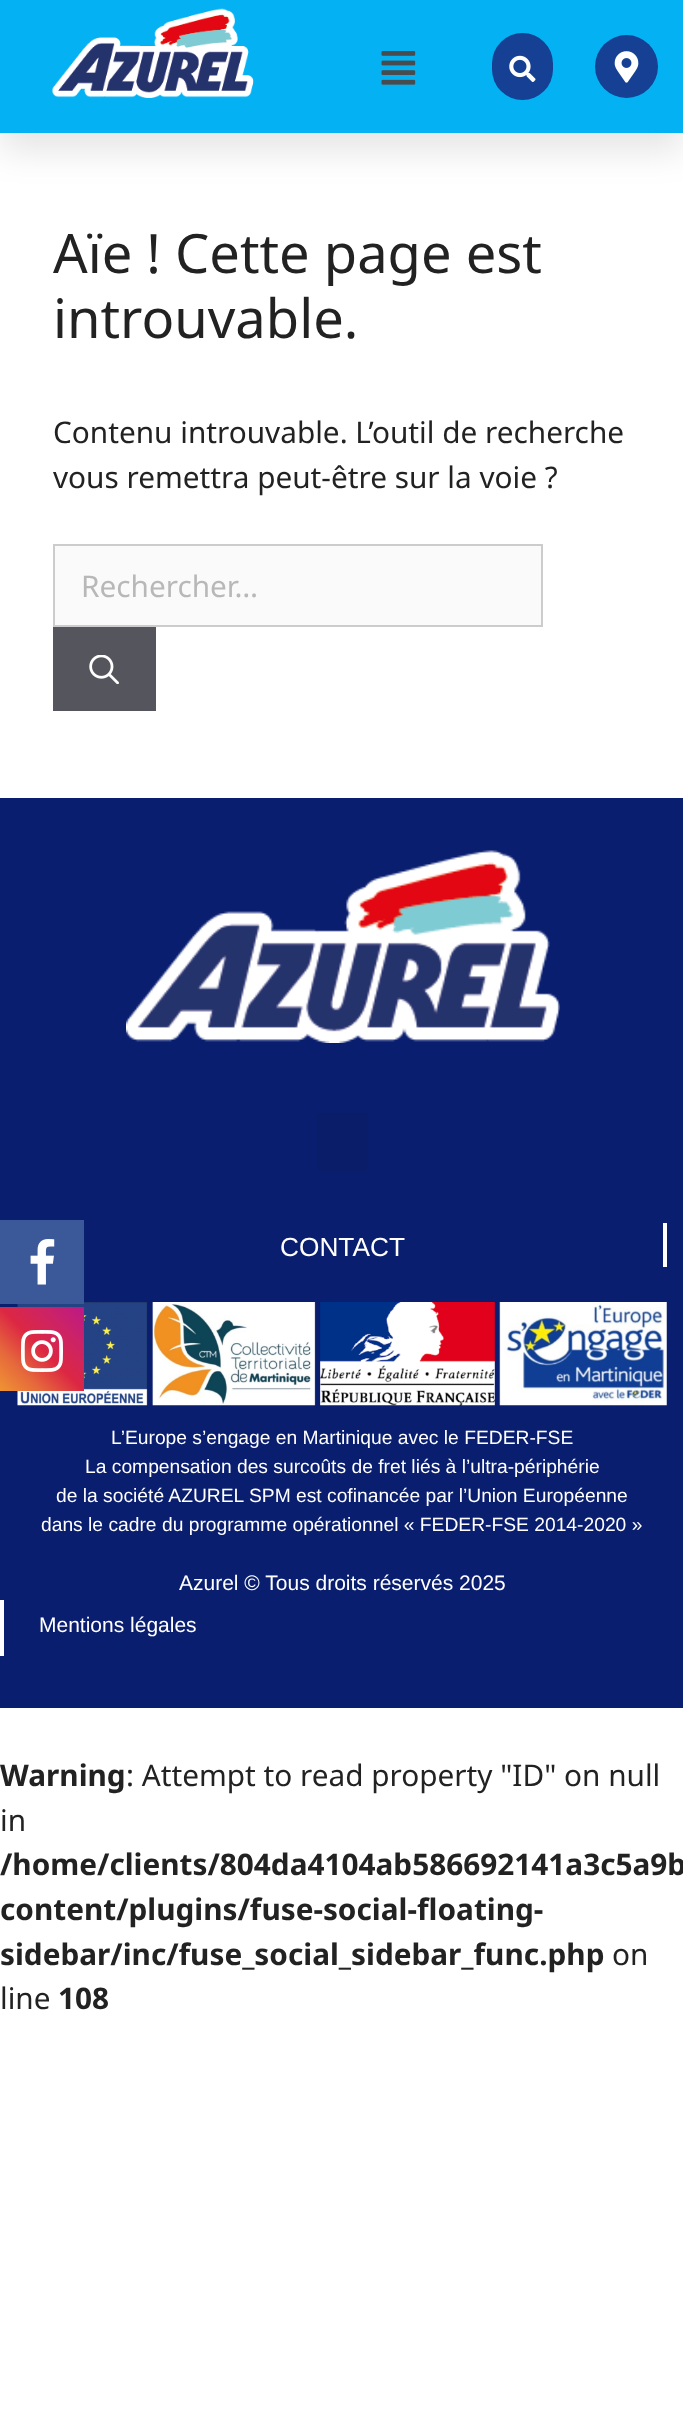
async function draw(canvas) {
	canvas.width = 683;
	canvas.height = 2432;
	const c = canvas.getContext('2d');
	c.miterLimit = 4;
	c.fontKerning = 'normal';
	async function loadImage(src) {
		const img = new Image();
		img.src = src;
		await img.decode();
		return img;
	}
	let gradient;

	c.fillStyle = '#fff';
	c.fillRect(0, 0, 683, 2432);
	c.fillStyle = '#0000001a';
	c.filter = 'blur(17.5px)';
	c.beginPath();
	c.rect(0, 18, 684, 133);
	c.fill();
	c.filter = 'none';
	c.fillStyle = '#04b2f4';
	c.fillRect(0, 0, 683, 133);
	c.drawImage(await loadImage('img1.png'), 52, 8, 202, 90);
	c.drawImage(await loadImage('img2.png'), 381, 51, 35, 34);
	c.fillStyle = '#154093';
	c.beginPath();
	c.roundRect(492, 33, 61, 67, 30.5);
	c.fill();
	c.drawImage(await loadImage('img3.png'), 509, 55, 27, 27);
	c.beginPath();
	c.arc(626.5, 66.5, 31.5, 0, 2 * Math.PI);
	c.fill();
	c.drawImage(await loadImage('img4.png'), 614, 51, 25, 32);
	c.font = '54.25px Noto Sans';
	c.fillStyle = '#222';
	c.fillText('Aïe ! Cette page est', 53, 273);
	c.fillText('introuvable.', 53, 338);
	c.font = '29.75px Noto Sans';
	c.fillText('Contenu introuvable. L’outil de recherche', 53, 443);
	c.fillText('vous remettra peut-être sur la voie ?', 53, 488);
	c.fillStyle = '#fafafa';
	c.beginPath();
	c.rect(54, 545, 488, 81);
	c.fill();
	c.strokeStyle = '#ccc';
	c.lineWidth = 2;
	c.stroke();
	c.fillStyle = '#b8b8b8';
	c.fillText('Rechercher…', 81, 597);
	c.fillStyle = '#55555e';
	c.fillRect(53, 627, 103, 84);
	c.drawImage(await loadImage('img5.png'), 89, 655, 30, 29);
	c.fillStyle = '#0a1e6f';
	c.fillRect(0, 798, 683, 910);
	c.drawImage(await loadImage('img9.png'), 17, 1302, 650, 104);
	c.fillStyle = '#3b5998';
	c.fillRect(0, 1220, 84, 84);
	c.drawImage(await loadImage('img6.png'), 30, 1239, 25, 46);
	gradient = c.createLinearGradient(0, 1391, 84, 1307);
	gradient.addColorStop(0, '#f09433');
	gradient.addColorStop(0.25, '#e6683c');
	gradient.addColorStop(0.5, '#dc2743');
	gradient.addColorStop(0.75, '#cc2366');
	gradient.addColorStop(1, '#bc1888');
	c.fillStyle = gradient;
	c.fillRect(0, 1307, 84, 84);
	c.drawImage(await loadImage('img7.png'), 21, 1330, 42, 42);
	c.drawImage(await loadImage('img8.png'), 126, 850, 434, 193);
	c.fillStyle = '#0a1d69';
	c.beginPath();
	c.roundRect(317, 1113, 51, 58, 5);
	c.fill();
	c.fillStyle = '#fff';
	c.fillRect(663, 1223, 4, 44);
	c.font = '26.25px Liberation Sans';
	c.fillText('CONTACT', 280, 1256);
	c.font = '19.25px Liberation Sans';
	for (const [text, x, y] of [
		['L’Europe s’engage en Martinique avec le FEDER-FSE', 111, 1444],
		['La compensation des surcoûts de fret liés à l’ultra-périphérie', 85, 1473],
		['de la société AZUREL SPM est cofinancée par l’Union Européenne', 56, 1502],
		['dans le cadre du programme opérationnel « FEDER-FSE 2014-2020 »', 41, 1531],
	]) {
		c.fillText(text, x, y);
	}
	c.font = '21px Liberation Sans';
	c.fillText('Azurel © Tous droits réservés 2025', 179, 1590);
	c.fillRect(0, 1600, 4, 56);
	c.fillText('Mentions légales', 39, 1632);
	c.font = 'bold 29.75px Noto Sans';
	c.fillStyle = '#222';
	c.fillText('Warning', 0, 1786);
	c.font = '29.75px Noto Sans';
	c.fillText(': Attempt to read property "ID" on null', 126, 1786);
	c.fillText('in', 0, 1831);
	c.font = 'bold 29.75px Noto Sans';
	for (const [text, x, y] of [
		['/home/clients/804da4104ab586692141a3c5a9b', 0, 1875],
		['content/plugins/fuse-social-floating-', 0, 1920],
		['sidebar/inc/fuse_social_sidebar_func.php', 0, 1965],
	]) {
		c.fillText(text, x, y);
	}
	c.font = '29.75px Noto Sans';
	c.fillText('on', 612, 1965);
	c.fillText('line', 0, 2009);
	c.font = 'bold 29.75px Noto Sans';
	c.fillText('108', 58, 2009);
}

draw(document.querySelector('canvas'));
